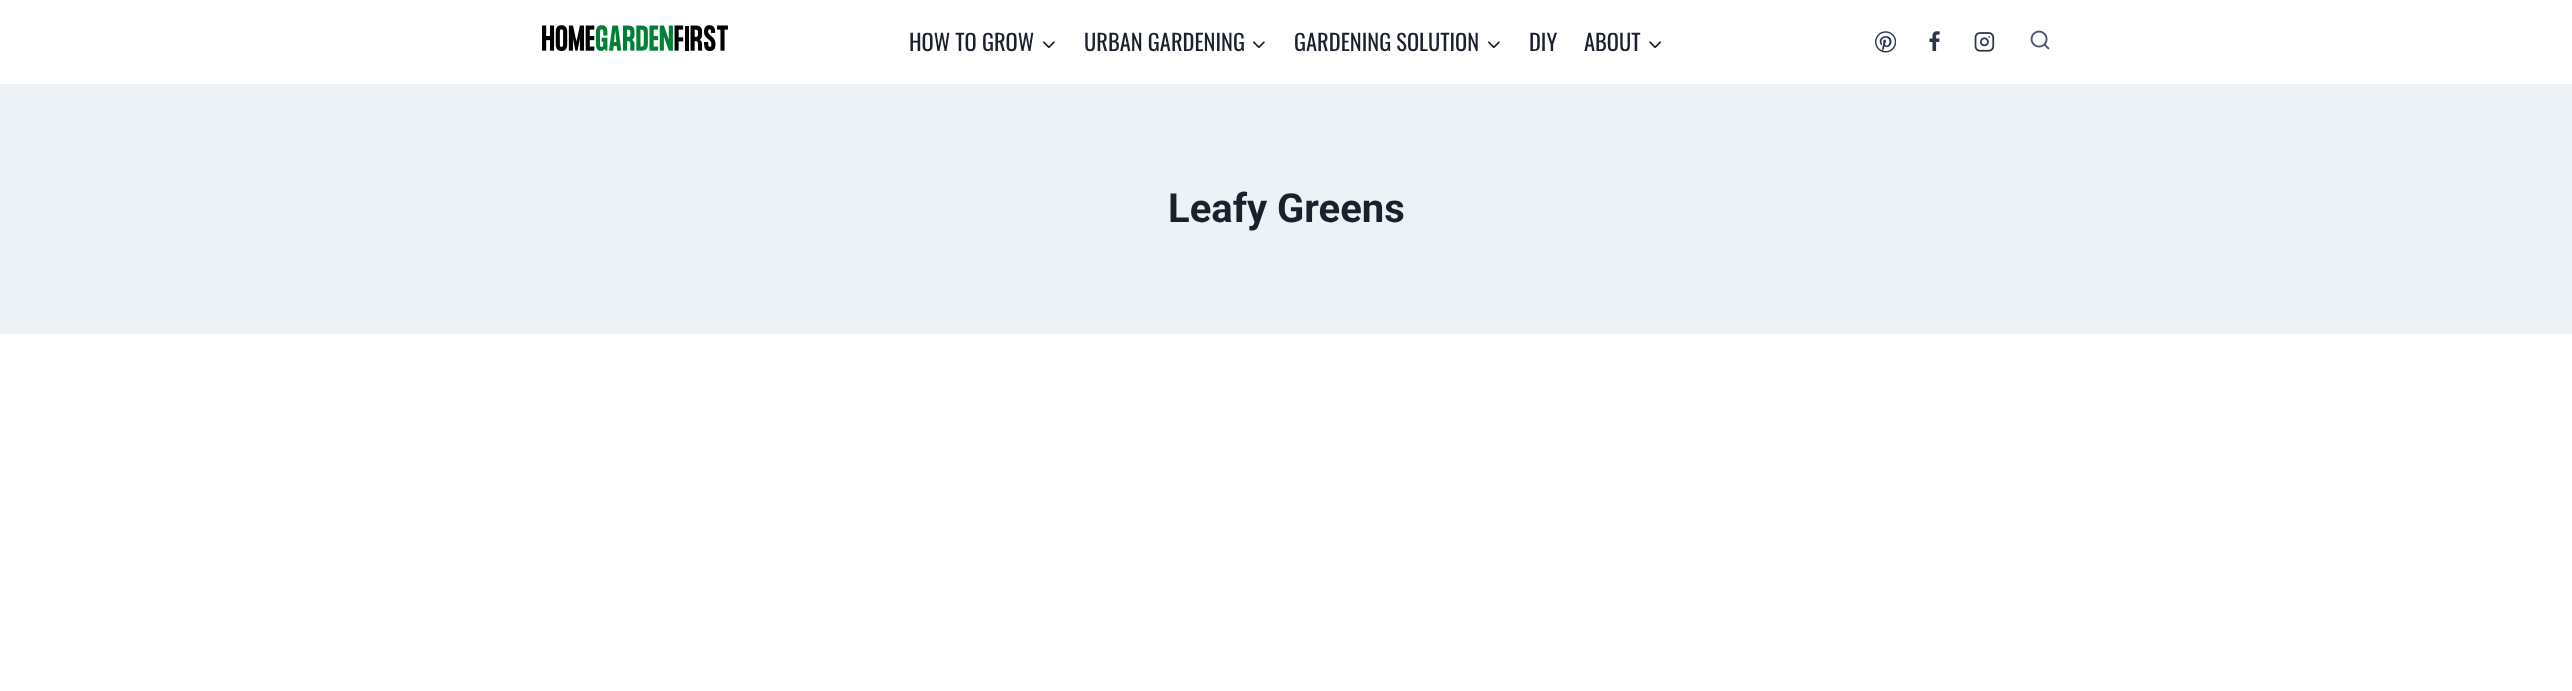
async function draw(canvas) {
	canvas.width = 2572;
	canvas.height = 691;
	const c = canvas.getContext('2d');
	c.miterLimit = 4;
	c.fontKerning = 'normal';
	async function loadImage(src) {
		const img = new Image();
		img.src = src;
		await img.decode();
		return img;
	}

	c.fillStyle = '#fff';
	c.fillRect(0, 0, 2572, 691);
	c.drawImage(await loadImage('img1.png'), 542, 25, 186, 26);
	c.font = '22.5px Oswald';
	c.fillStyle = '#1a202c';
	c.fillText('HOW TO GROW', 909, 51);
	c.drawImage(await loadImage('img2.png'), 1043, 41, 12, 8);
	c.fillText('URBAN GARDENING', 1084, 51);
	c.drawImage(await loadImage('img2.png'), 1253, 41, 12, 8);
	c.fillText('GARDENING SOLUTION', 1294, 51);
	c.drawImage(await loadImage('img2.png'), 1488, 41, 12, 8);
	c.fillText('DIY', 1529, 51);
	c.fillText('ABOUT', 1584, 51);
	c.drawImage(await loadImage('img3.png'), 1649, 41, 12, 8);
	c.drawImage(await loadImage('img4.png'), 1875, 31, 21, 22);
	c.drawImage(await loadImage('img5.png'), 1929, 31, 11, 20);
	c.drawImage(await loadImage('img6.png'), 1974, 32, 21, 20);
	c.drawImage(await loadImage('img7.png'), 2030, 30, 20, 20);
	c.fillStyle = '#edf2f7';
	c.fillRect(0, 84, 2572, 250);
	c.font = 'bold 40px Roboto';
	c.fillStyle = '#1a202c';
	c.fillText('Leafy Greens', 1168, 222);
}

draw(document.querySelector('canvas'));
